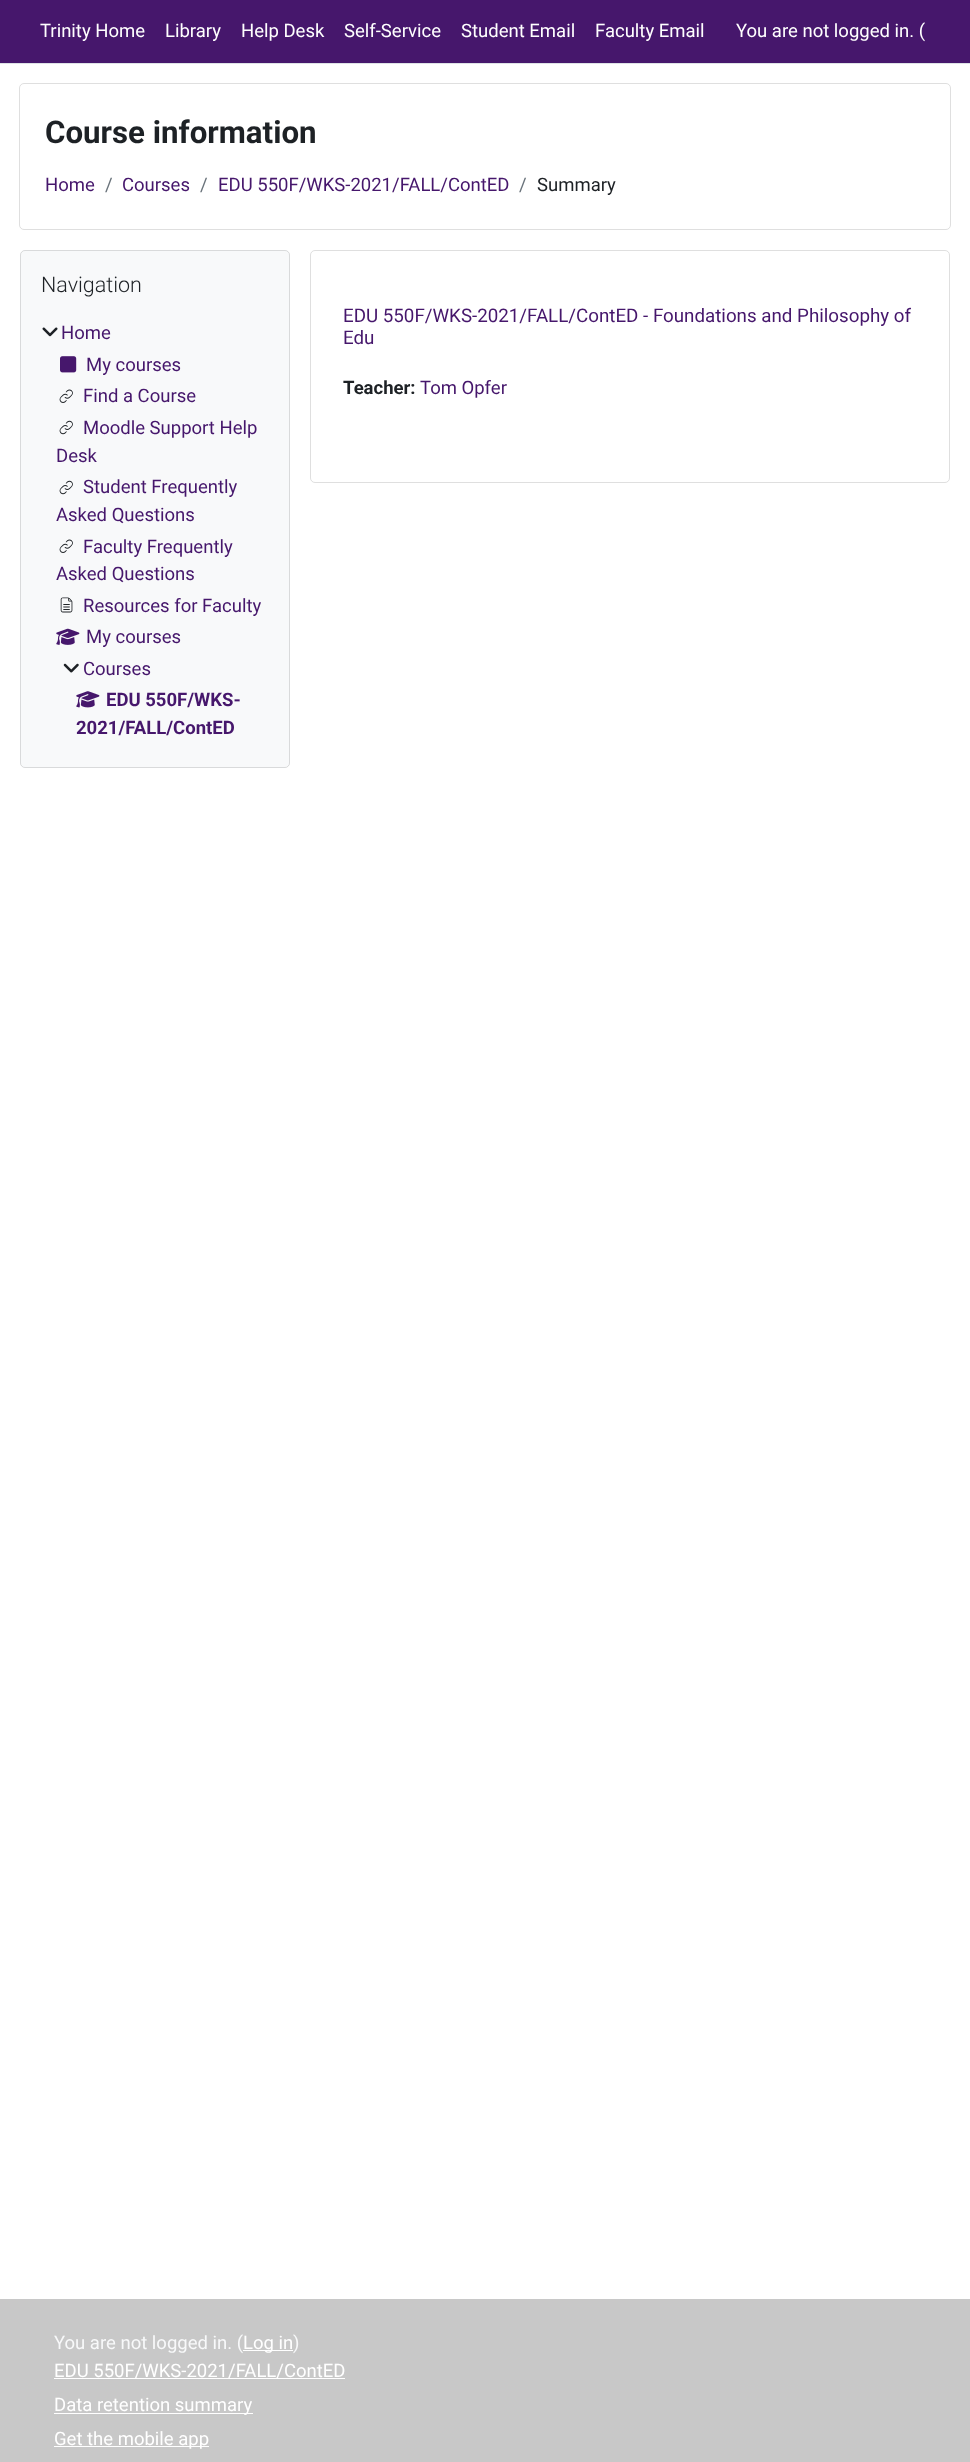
async function draw(canvas) {
	canvas.width = 970;
	canvas.height = 2462;
	const c = canvas.getContext('2d');
	c.miterLimit = 4;
	c.fontKerning = 'normal';
	async function loadImage(src) {
		const img = new Image();
		img.src = src;
		await img.decode();
		return img;
	}

	c.fillStyle = '#fff';
	c.fillRect(0, 0, 970, 2462);
	c.fillStyle = '#46176c';
	c.fillRect(0, 0, 970, 63);
	c.fillStyle = '#dee2e6';
	c.fillRect(0, 63, 970, 1);
	c.font = '18.5px Roboto';
	c.fillStyle = '#fff';
	for (const [text, x, y] of [
		['Trinity Home', 40, 37],
		['Library', 165, 37],
		['Help Desk', 241, 37],
		['Self-Service', 344, 37],
		['Student Email', 461, 37],
		['Faculty Email', 595, 37],
		['You are not logged in. (', 736, 37],
	]) {
		c.fillText(text, x, y);
	}
	c.beginPath();
	c.roundRect(19.5, 83.5, 931, 146, 4.5);
	c.strokeStyle = '#dfdfdf';
	c.stroke();
	c.font = 'bold 31.25px Roboto';
	c.fillStyle = '#1d2125';
	c.fillText('Course information', 45, 143);
	c.font = '18.5px Roboto';
	c.fillStyle = '#46176c';
	c.fillText('Home', 45, 191);
	c.fillStyle = '#6a737b';
	c.fillText('/', 105, 191);
	c.fillStyle = '#46176c';
	c.fillText('Courses', 122, 191);
	c.fillStyle = '#6a737b';
	c.fillText('/', 200, 191);
	c.fillStyle = '#46176c';
	c.fillText('EDU 550F/WKS-2021/FALL/ContED', 218, 191);
	c.fillStyle = '#6a737b';
	c.fillText('/', 519, 191);
	c.fillStyle = '#1d2125';
	c.fillText('Summary', 537, 191);
	c.fillStyle = '#f8f9fa';
	c.beginPath();
	c.roundRect(20, 250, 270, 518, 5);
	c.fill();
	c.beginPath();
	c.roundRect(20.5, 250.5, 269, 517, 4.5);
	c.strokeStyle = '#0000001f';
	c.stroke();
	c.font = '300 21.5px Roboto';
	c.fillStyle = '#1d2125';
	c.fillText('Navigation', 41, 292);
	c.drawImage(await loadImage('img1.png'), 42, 327, 16, 10);
	c.font = '18.5px Roboto';
	c.fillStyle = '#46176c';
	c.fillText('Home', 61, 339);
	c.drawImage(await loadImage('img2.png'), 60, 356, 17, 17);
	c.fillText('My courses', 86, 371);
	c.drawImage(await loadImage('img3.png'), 59, 389, 14, 14);
	c.fillText('Find a Course', 83, 402);
	c.drawImage(await loadImage('img4.png'), 59, 420, 14, 15);
	c.fillText('Moodle Support Help', 83, 434);
	c.fillText('Desk', 56, 462);
	c.drawImage(await loadImage('img4.png'), 59, 480, 14, 15);
	c.fillText('Student Frequently', 83, 493);
	c.fillText('Asked Questions', 56, 521);
	c.drawImage(await loadImage('img3.png'), 59, 539, 14, 14);
	c.fillText('Faculty Frequently', 83, 553);
	c.fillText('Asked Questions', 56, 580);
	c.drawImage(await loadImage('img5.png'), 60, 597, 13, 16);
	c.fillText('Resources for Faculty', 83, 612);
	c.drawImage(await loadImage('img6.png'), 56, 628, 24, 17);
	c.fillText('My courses', 86, 643);
	c.drawImage(await loadImage('img7.png'), 63, 663, 16, 10);
	c.fillText('Courses', 83, 675);
	c.drawImage(await loadImage('img8.png'), 76, 691, 24, 17);
	c.font = 'bold 18.5px Roboto';
	c.fillText('EDU 550F/WKS-', 106, 706);
	c.fillText('2021/FALL/ContED', 76, 734);
	c.beginPath();
	c.roundRect(310.5, 250.5, 639, 232, 4.5);
	c.strokeStyle = '#dfdfdf';
	c.stroke();
	c.font = '18.75px Roboto';
	c.fillText('EDU 550F/WKS-2021/FALL/ContED - Foundations and Philosophy of', 343, 322);
	c.fillText('Edu', 343, 344);
	c.font = 'bold 18.5px Roboto';
	c.fillStyle = '#1d2125';
	c.fillText('Teacher:', 343, 394);
	c.font = '18.5px Roboto';
	c.fillStyle = '#46176c';
	c.fillText('Tom Opfer', 420, 394);
	c.fillStyle = '#c8c8c8';
	c.fillRect(0, 2299, 970, 163);
	c.fillStyle = '#f8f9fa';
	c.fillText('You are not logged in. (', 54, 2349);
	c.fillStyle = '#fff';
	c.fillRect(243, 2350, 50, 1);
	c.fillText('Log in', 243, 2349);
	c.fillStyle = '#f8f9fa';
	c.fillText(')', 293, 2349);
	c.fillStyle = '#fff';
	c.fillRect(54, 2378, 291, 1);
	c.fillText('EDU 550F/WKS-2021/FALL/ContED', 54, 2377);
	c.fillRect(54, 2413, 199, 1);
	c.fillText('Data retention summary', 54, 2411);
	c.fillRect(54, 2446, 155, 1);
	c.fillText('Get the mobile app', 54, 2445);
}

draw(document.querySelector('canvas'));
